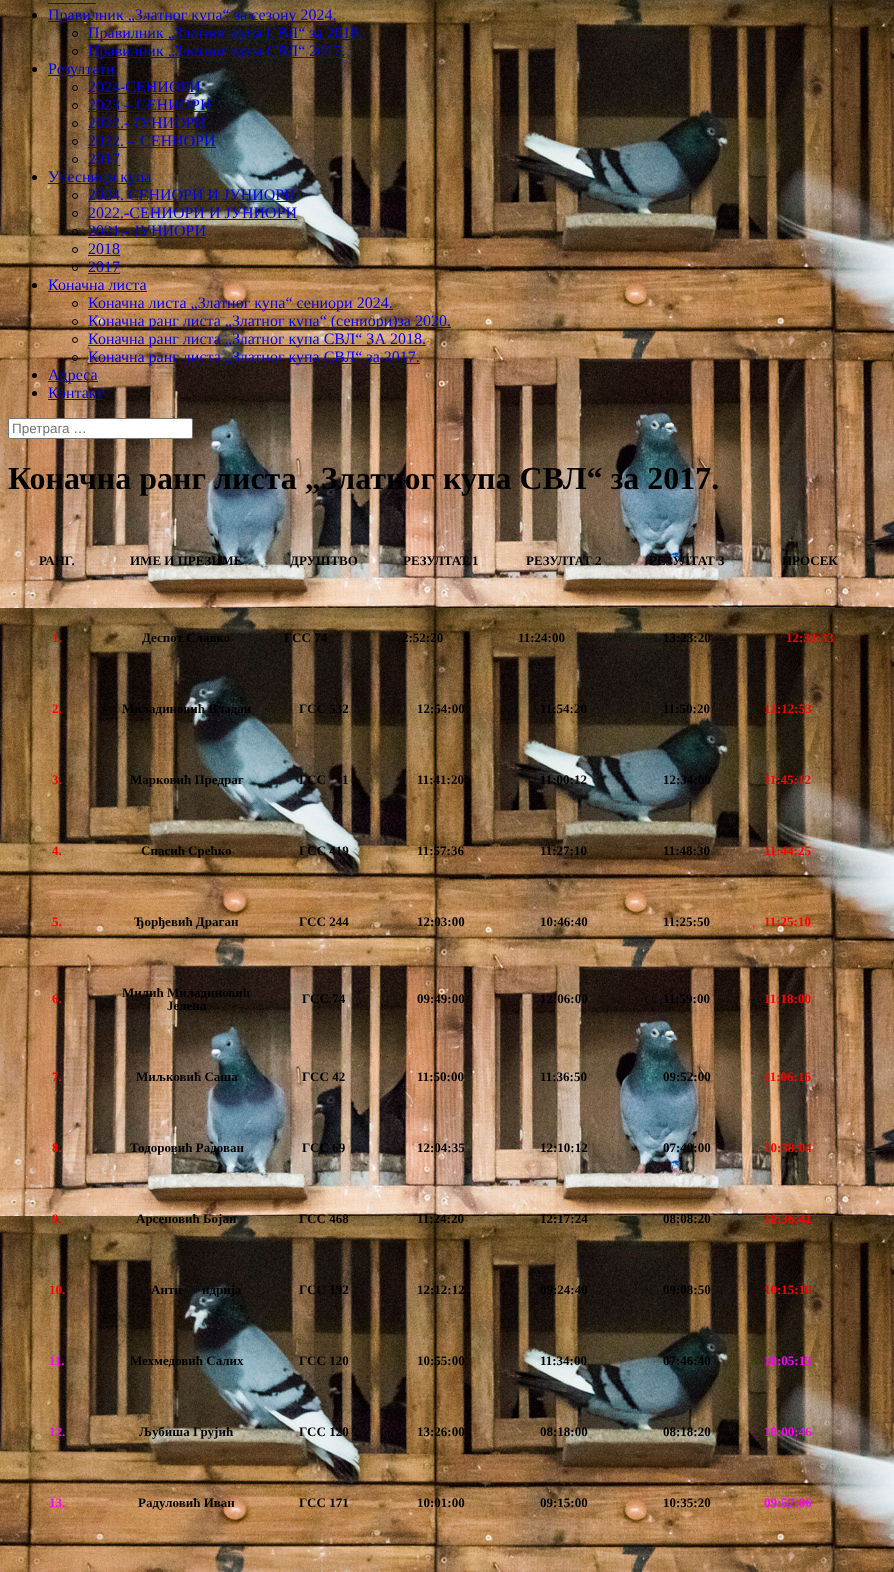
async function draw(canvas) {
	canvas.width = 894;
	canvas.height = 1572;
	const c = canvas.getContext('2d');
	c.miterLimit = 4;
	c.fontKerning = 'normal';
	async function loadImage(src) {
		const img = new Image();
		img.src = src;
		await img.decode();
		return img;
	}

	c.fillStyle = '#fff';
	c.fillRect(0, 0, 894, 1572);
	c.drawImage(await loadImage('img1.png'), 0, 0, 894, 1572);
	c.fillStyle = '#00e';
	c.fillRect(48, 3, 48, 1);
	c.fillStyle = '#000';
	c.beginPath();
	c.arc(34.5, 15.5, 2.5, 0, 2 * Math.PI);
	c.fill();
	c.fillStyle = '#00e';
	c.fillRect(48, 21, 288, 1);
	c.font = '16px Liberation Serif';
	c.fillText('Правилник „Златног купа“ за сезону 2024.', 48, 20);
	c.beginPath();
	c.arc(75, 34, 2.5, 0, 2 * Math.PI);
	c.strokeStyle = '#000';
	c.stroke();
	c.fillRect(88, 39, 275, 1);
	c.fillText('Правилник „Златног купа СВЛ“ за 2018.', 88, 38);
	c.beginPath();
	c.arc(75, 52, 2.5, 0, 2 * Math.PI);
	c.stroke();
	c.fillRect(88, 57, 257, 1);
	c.fillText('Правилник „Златног купа СВЛ“ 2017.', 88, 56);
	c.fillStyle = '#000';
	c.beginPath();
	c.arc(34.5, 69.5, 2.5, 0, 2 * Math.PI);
	c.fill();
	c.fillStyle = '#00e';
	c.fillRect(48, 75, 67, 1);
	c.fillText('Резултати', 48, 74);
	c.beginPath();
	c.arc(75, 88, 2.5, 0, 2 * Math.PI);
	c.stroke();
	c.fillText('2024-СЕНИОРИ', 88, 92);
	c.fillRect(88, 93, 113, 1);
	c.beginPath();
	c.arc(75, 106, 2.5, 0, 2 * Math.PI);
	c.stroke();
	c.fillText('2023 – СЕНИОРИ', 88, 110);
	c.fillRect(88, 111, 124, 1);
	c.beginPath();
	c.arc(75, 124, 2.5, 0, 2 * Math.PI);
	c.stroke();
	c.fillText('2022.- ЈУНИОРИ', 88, 128);
	c.fillRect(88, 129, 118, 1);
	c.beginPath();
	c.arc(75, 142, 2.5, 0, 2 * Math.PI);
	c.stroke();
	c.fillText('2022. – СЕНИОРИ', 88, 146);
	c.fillRect(88, 147, 128, 1);
	c.beginPath();
	c.arc(75, 160, 2.5, 0, 2 * Math.PI);
	c.stroke();
	c.fillText('2017', 88, 164);
	c.fillRect(88, 165, 32, 1);
	c.fillStyle = '#000';
	c.beginPath();
	c.arc(34.5, 177.5, 2.5, 0, 2 * Math.PI);
	c.fill();
	c.fillStyle = '#00e';
	c.fillRect(48, 183, 103, 1);
	c.fillText('Учесници купа', 48, 182);
	c.beginPath();
	c.arc(75, 196, 2.5, 0, 2 * Math.PI);
	c.stroke();
	c.fillText('2024. СЕНИОРИ И ЈУНИОРИ', 88, 200);
	c.fillRect(88, 201, 208, 1);
	c.beginPath();
	c.arc(75, 214, 2.5, 0, 2 * Math.PI);
	c.stroke();
	c.fillText('2022.-СЕНИОРИ И ЈУНИОРИ', 88, 218);
	c.fillRect(88, 219, 209, 1);
	c.beginPath();
	c.arc(75, 232, 2.5, 0, 2 * Math.PI);
	c.stroke();
	c.fillText('2021.- ЈУНИОРИ', 88, 236);
	c.fillRect(88, 237, 118, 1);
	c.beginPath();
	c.arc(75, 250, 2.5, 0, 2 * Math.PI);
	c.stroke();
	c.fillText('2018', 88, 254);
	c.fillRect(88, 255, 32, 1);
	c.beginPath();
	c.arc(75, 268, 2.5, 0, 2 * Math.PI);
	c.stroke();
	c.fillText('2017', 88, 272);
	c.fillRect(88, 273, 32, 1);
	c.fillStyle = '#000';
	c.beginPath();
	c.arc(34.5, 285.5, 2.5, 0, 2 * Math.PI);
	c.fill();
	c.fillStyle = '#00e';
	c.fillText('Коначна листа', 48, 290);
	c.fillRect(48, 291, 99, 1);
	c.beginPath();
	c.arc(75, 304, 2.5, 0, 2 * Math.PI);
	c.stroke();
	c.fillRect(88, 309, 305, 1);
	c.fillText('Коначна листа „Златног купа“ сениори 2024.', 88, 308);
	c.beginPath();
	c.arc(75, 322, 2.5, 0, 2 * Math.PI);
	c.stroke();
	c.fillRect(88, 327, 363, 1);
	c.fillText('Коначна ранг листа „Златног купа“ (сениори)за 2020.', 88, 326);
	c.beginPath();
	c.arc(75, 340, 2.5, 0, 2 * Math.PI);
	c.stroke();
	c.fillRect(88, 345, 338, 1);
	c.fillText('Коначна ранг листа „Златног купа СВЛ“ ЗА 2018.', 88, 344);
	c.beginPath();
	c.arc(75, 358, 2.5, 0, 2 * Math.PI);
	c.stroke();
	c.fillRect(88, 363, 332, 1);
	c.fillText('Коначна ранг листа „Златног купа СВЛ“ за 2017.', 88, 362);
	c.fillStyle = '#000';
	c.beginPath();
	c.arc(34.5, 375.5, 2.5, 0, 2 * Math.PI);
	c.fill();
	c.fillStyle = '#00e';
	c.fillRect(48, 381, 50, 1);
	c.fillText('Адреса', 48, 380);
	c.fillStyle = '#000';
	c.beginPath();
	c.arc(34.5, 393.5, 2.5, 0, 2 * Math.PI);
	c.fill();
	c.fillStyle = '#00e';
	c.fillText('Контакт', 48, 398);
	c.fillRect(48, 399, 55, 1);
	c.fillStyle = '#fff';
	c.beginPath();
	c.roundRect(8.5, 418.5, 184, 20, 1.5);
	c.fill();
	c.strokeStyle = '#767676';
	c.stroke();
	c.font = '13.5px Liberation Sans';
	c.fillStyle = '#757575';
	c.fillText('Претрага …', 12, 433);
	c.font = 'bold 32px Liberation Serif';
	c.fillStyle = '#000';
	c.fillText('Коначна ранг листа „Златног купа СВЛ“ за 2017.', 8, 489);
	c.font = 'bold 13px Liberation Serif';
	for (const [text, x, y] of [
		['РАНГ.', 39, 565],
		['ИМЕ И ПРЕЗИМЕ', 130, 565],
		['ДРУШТВО', 290, 565],
		['РЕЗУЛТАТ 1', 403, 565],
		['РЕЗУЛТАТ 2', 526, 565],
		['РЕЗУЛТАТ 3', 649, 565],
		['ПРОСЕК', 782, 565],
	]) {
		c.fillText(text, x, y);
	}
	c.fillStyle = '#f00';
	c.fillText('1.', 52, 642);
	c.fillStyle = '#000';
	for (const [text, x, y] of [
		['Деспот Славко', 142, 642],
		['ГСС 74', 284, 642],
		['2:52:20', 402, 642],
		['11:24:00', 518, 642],
		['13:23:20', 663, 642],
	]) {
		c.fillText(text, x, y);
	}
	c.fillStyle = '#f00';
	c.fillText('12:33:33', 786, 642);
	c.fillText('2.', 52, 713);
	c.fillStyle = '#000';
	for (const [text, x, y] of [
		['Миладиновић Владан', 122, 713],
		['ГСС 532', 299, 713],
		['12:54:00', 417, 713],
		['11:54:20', 540, 713],
		['11:50:20', 663, 713],
	]) {
		c.fillText(text, x, y);
	}
	c.fillStyle = '#f00';
	c.fillText('12:12:53', 764, 713);
	c.fillText('3.', 52, 784);
	c.fillStyle = '#000';
	for (const [text, x, y] of [
		['Марковић Предраг', 130, 784],
		['ГСС', 299, 784],
		['1', 342, 784],
		['11:41:20', 417, 784],
		['11:00:12', 540, 784],
		['12:34:00', 663, 784],
	]) {
		c.fillText(text, x, y);
	}
	c.fillStyle = '#f00';
	c.fillText('11:45:12', 764, 784);
	c.fillText('4.', 52, 855);
	c.fillStyle = '#000';
	for (const [text, x, y] of [
		['Спасић Срећко', 141, 855],
		['ГСС 419', 299, 855],
		['11:57:36', 417, 855],
		['11:27:10', 540, 855],
		['11:48:30', 663, 855],
	]) {
		c.fillText(text, x, y);
	}
	c.fillStyle = '#f00';
	c.fillText('11:44:25', 764, 855);
	c.fillText('5.', 52, 926);
	c.fillStyle = '#000';
	for (const [text, x, y] of [
		['Ђорђевић Драган', 134, 926],
		['ГСС 244', 299, 926],
		['12:03:00', 417, 926],
		['10:46:40', 540, 926],
		['11:25:50', 663, 926],
	]) {
		c.fillText(text, x, y);
	}
	c.fillStyle = '#f00';
	c.fillText('11:25:10', 764, 926);
	c.fillText('6.', 52, 1003);
	c.fillStyle = '#000';
	for (const [text, x, y] of [
		['Милић Миладиновић', 122, 997],
		['Јелена', 167, 1010],
		['ГСС 74', 302, 1003],
		['09:49:00', 417, 1003],
		['12:06:00', 540, 1003],
		['11:59:00', 663, 1003],
	]) {
		c.fillText(text, x, y);
	}
	c.fillStyle = '#f00';
	c.fillText('11:18:00', 764, 1003);
	c.fillText('7.', 52, 1081);
	c.fillStyle = '#000';
	for (const [text, x, y] of [
		['Миљковић Саша', 136, 1081],
		['ГСС 42', 302, 1081],
		['11:50:00', 417, 1081],
		['11:36:50', 540, 1081],
		['09:52:00', 663, 1081],
	]) {
		c.fillText(text, x, y);
	}
	c.fillStyle = '#f00';
	c.fillText('11:06:16', 764, 1081);
	c.fillText('8.', 52, 1152);
	c.fillStyle = '#000';
	for (const [text, x, y] of [
		['Тодоровић Радован', 130, 1152],
		['ГСС 69', 302, 1152],
		['12:04:35', 417, 1152],
		['12:10:12', 540, 1152],
		['07:40:00', 663, 1152],
	]) {
		c.fillText(text, x, y);
	}
	c.fillStyle = '#f00';
	c.fillText('10:38:04', 764, 1152);
	c.fillText('9.', 52, 1223);
	c.fillStyle = '#000';
	for (const [text, x, y] of [
		['Арсеновић Бојан', 136, 1223],
		['ГСС 468', 299, 1223],
		['11:24:20', 417, 1223],
		['12:17:24', 540, 1223],
		['08:08:20', 663, 1223],
	]) {
		c.fillText(text, x, y);
	}
	c.fillStyle = '#f00';
	c.fillText('10:36:41', 764, 1223);
	c.fillText('10.', 49, 1294);
	c.fillStyle = '#000';
	for (const [text, x, y] of [
		['Анти', 151, 1294],
		['ндрија', 202, 1294],
		['ГСС 192', 299, 1294],
		['12:12:12', 417, 1294],
		['09:24:40', 540, 1294],
		['09:08:50', 663, 1294],
	]) {
		c.fillText(text, x, y);
	}
	c.fillStyle = '#f00';
	c.fillText('10:15:16', 764, 1294);
	c.fillStyle = '#f0f';
	c.fillText('11.', 49, 1365);
	c.fillStyle = '#000';
	for (const [text, x, y] of [
		['Мехмедовић Салих', 130, 1365],
		['ГСС 120', 299, 1365],
		['10:55:00', 417, 1365],
		['11:34:00', 540, 1365],
		['07:46:40', 663, 1365],
	]) {
		c.fillText(text, x, y);
	}
	c.fillStyle = '#f0f';
	c.fillText('10:05:13', 764, 1365);
	c.fillText('12.', 49, 1436);
	c.fillStyle = '#000';
	for (const [text, x, y] of [
		['Љубиша Грујић', 139, 1436],
		['ГСС 120', 299, 1436],
		['13:26:00', 417, 1436],
		['08:18:00', 540, 1436],
		['08:18:20', 663, 1436],
	]) {
		c.fillText(text, x, y);
	}
	c.fillStyle = '#f0f';
	c.fillText('10:00:46', 764, 1436);
	c.fillText('13.', 49, 1507);
	c.fillStyle = '#000';
	for (const [text, x, y] of [
		['Радуловић Иван', 138, 1507],
		['ГСС 171', 299, 1507],
		['10:01:00', 417, 1507],
		['09:15:00', 540, 1507],
		['10:35:20', 663, 1507],
	]) {
		c.fillText(text, x, y);
	}
	c.fillStyle = '#f0f';
	c.fillText('09:57:06', 764, 1507);
}

draw(document.querySelector('canvas'));
